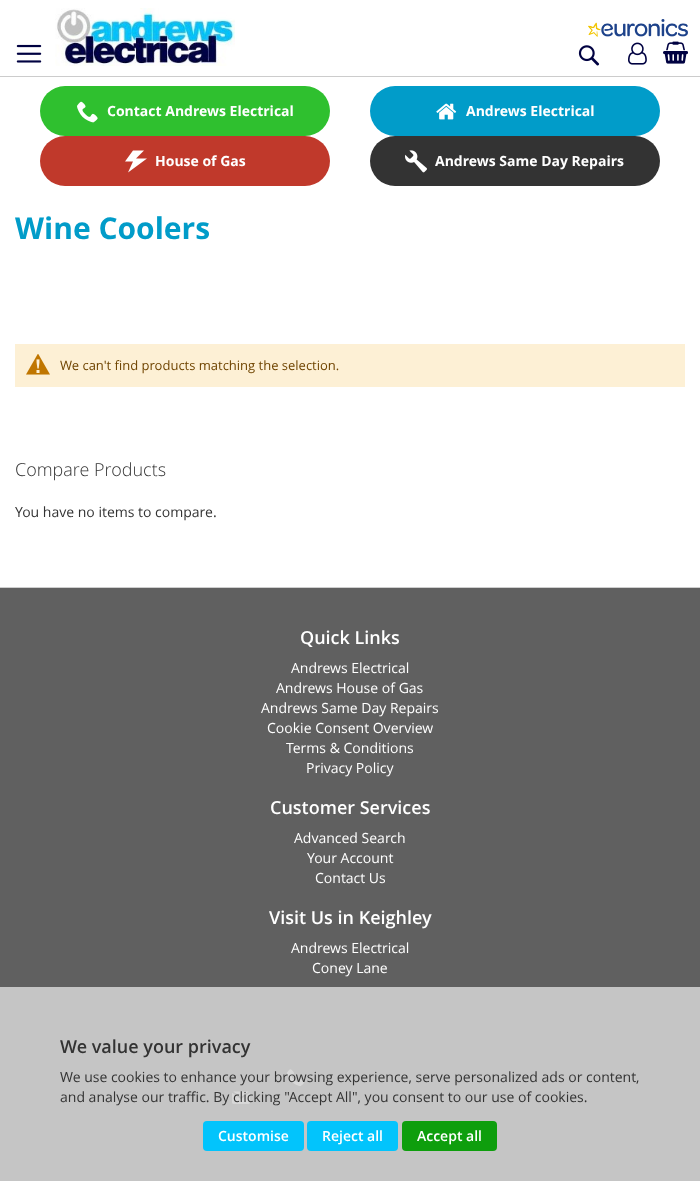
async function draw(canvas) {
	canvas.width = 700;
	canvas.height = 1181;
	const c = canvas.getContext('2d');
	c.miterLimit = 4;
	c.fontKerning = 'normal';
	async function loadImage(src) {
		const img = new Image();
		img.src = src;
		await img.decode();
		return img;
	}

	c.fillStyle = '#fff';
	c.fillRect(0, 0, 700, 1181);
	c.drawImage(await loadImage('img1.png'), 16, 44, 26, 19);
	c.drawImage(await loadImage('img2.png'), 55, 8, 180, 58);
	c.drawImage(await loadImage('img3.png'), 588, 19, 100, 18);
	c.drawImage(await loadImage('img4.png'), 628, 42, 19, 23);
	c.drawImage(await loadImage('img5.png'), 663, 41, 25, 23);
	c.drawImage(await loadImage('img6.png'), 578, 45, 22, 21);
	c.fillStyle = '#ccc';
	c.fillRect(0, 76, 700, 1);
	c.fillStyle = '#2fc02f';
	c.beginPath();
	c.roundRect(40, 86, 290, 50, 25);
	c.fill();
	c.drawImage(await loadImage('img7.png'), 77, 101, 21, 22);
	c.font = 'bold 14px Open Sans';
	c.fillStyle = '#fff';
	c.fillText('Contact Andrews Electrical', 107, 116);
	c.fillStyle = '#019cc9';
	c.beginPath();
	c.roundRect(370, 86, 290, 50, 25);
	c.fill();
	c.drawImage(await loadImage('img8.png'), 436, 103, 21, 17);
	c.fillStyle = '#fff';
	c.fillText('Andrews Electrical', 466, 116);
	c.fillStyle = '#c0392b';
	c.beginPath();
	c.roundRect(40, 136, 290, 50, 25);
	c.fill();
	c.fillStyle = '#fff';
	c.beginPath();
	c.moveTo(133, 150.5);
	c.lineTo(125, 161.5);
	c.lineTo(133, 161.5);
	c.lineTo(128, 172.5);
	c.lineTo(147, 158.5);
	c.lineTo(136, 158.5);
	c.lineTo(144, 150.5);
	c.closePath();
	c.fill();
	c.fillText('House of Gas', 155, 166);
	c.fillStyle = '#333';
	c.beginPath();
	c.roundRect(370, 136, 290, 50, 25);
	c.fill();
	c.drawImage(await loadImage('img9.png'), 405, 150, 22, 23);
	c.fillStyle = '#fff';
	c.fillText('Andrews Same Day Repairs', 435, 166);
	c.font = 'bold 30px Open Sans';
	c.fillStyle = '#019cc9';
	c.fillText('Wine Coolers', 15, 239);
	c.fillStyle = '#fdf0d5';
	c.fillRect(15, 344, 670, 43);
	c.drawImage(await loadImage('img10.png'), 26, 354, 24, 21);
	c.font = '13px Open Sans';
	c.fillStyle = '#6f4400';
	c.fillText('We can\'t find products matching the selection.', 60, 370);
	c.font = '300 18px Open Sans';
	c.fillStyle = '#333';
	c.fillText('Compare Products', 15, 476);
	c.font = '14px Open Sans';
	c.fillText('You have no items to compare.', 15, 517);
	c.fillStyle = '#606060';
	c.fillRect(0, 588, 700, 593);
	c.fillStyle = '#cecece';
	c.fillRect(0, 587, 700, 1);
	c.font = '600 18px Open Sans';
	c.fillStyle = '#fff';
	c.fillText('Quick Links', 300, 644);
	c.font = '14px Open Sans';
	for (const [text, x, y] of [
		['Andrews Electrical', 291, 673],
		['Andrews House of Gas', 276, 693],
		['Andrews Same Day Repairs', 261, 713],
		['Cookie Consent Overview', 267, 733],
		['Terms & Conditions', 286, 753],
		['Privacy Policy', 306, 773],
	]) {
		c.fillText(text, x, y);
	}
	c.font = '600 18px Open Sans';
	c.fillText('Customer Services', 270, 814);
	c.font = '14px Open Sans';
	for (const [text, x, y] of [
		['Advanced Search', 294, 843],
		['Your Account', 307, 863],
		['Contact Us', 315, 883],
	]) {
		c.fillText(text, x, y);
	}
	c.font = '600 18px Open Sans';
	c.fillText('Visit Us in Keighley', 269, 924);
	c.font = '14px Open Sans';
	c.fillText('Andrews Electrical', 291, 953);
	c.fillText('Coney Lane', 312, 973);
	c.drawImage(await loadImage('img11.png'), 287, 1069, 17, 18);
	c.drawImage(await loadImage('img12.png'), 232, 1091, 18, 13);
	c.fillStyle = '#d3d3d3e0';
	c.fillRect(0, 987, 700, 194);
	c.font = '600 18px Open Sans';
	c.fillStyle = '#333';
	c.fillText('We value your privacy', 60, 1053);
	c.font = '14px Open Sans';
	c.fillText('We use cookies to enhance your browsing experience, serve personalized ads or content,', 60, 1082);
	c.fillText('and analyse our traffic. By clicking "Accept All", you consent to our use of cookies.', 60, 1102);
	c.fillStyle = '#02c4fc';
	c.beginPath();
	c.roundRect(203, 1121, 101, 30, 4);
	c.fill();
	c.font = '600 14px Open Sans';
	c.fillStyle = '#fff';
	c.fillText('Customise', 218, 1141);
	c.fillStyle = '#02c4fc';
	c.beginPath();
	c.roundRect(307, 1121, 91, 30, 4);
	c.fill();
	c.fillStyle = '#fff';
	c.fillText('Reject all', 322, 1141);
	c.fillStyle = '#0e9e0d';
	c.beginPath();
	c.roundRect(402, 1121, 95, 30, 4);
	c.fill();
	c.fillStyle = '#fff';
	c.fillText('Accept all', 417, 1141);
}

draw(document.querySelector('canvas'));
